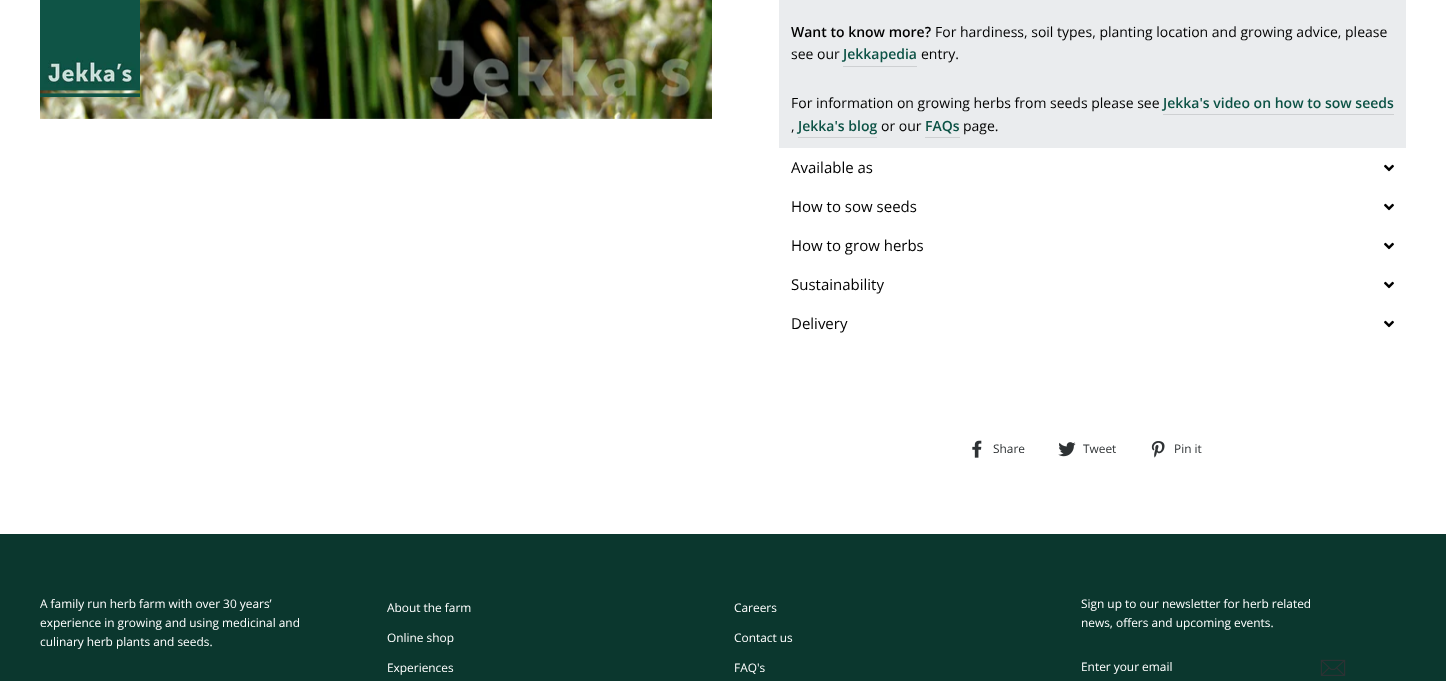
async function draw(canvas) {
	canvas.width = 1446;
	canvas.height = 681;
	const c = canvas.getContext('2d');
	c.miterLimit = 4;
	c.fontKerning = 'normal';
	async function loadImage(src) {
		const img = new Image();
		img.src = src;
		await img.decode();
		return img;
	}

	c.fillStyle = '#fff';
	c.fillRect(0, 0, 1446, 681);
	c.drawImage(await loadImage('img2.png'), 40, 0, 672, 119);
	c.drawImage(await loadImage('img1.png'), 40, 0, 100, 97);
	c.fillStyle = '#eaecee';
	c.fillRect(779, 0, 627, 148);
	c.font = '600 14px Open Sans';
	c.fillStyle = '#000';
	c.fillText('Want to know more?', 791, 37);
	c.font = '14px Open Sans';
	c.fillText('For hardiness, soil types, planting location and growing advice, please', 935, 37);
	c.fillText('see our', 791, 59);
	c.fillStyle = '#ced0d2';
	c.fillRect(843, 66, 74, 1);
	c.font = '600 14px Open Sans';
	c.fillStyle = '#0c5245';
	c.fillText('Jekkapedia', 843, 59);
	c.font = '14px Open Sans';
	c.fillStyle = '#000';
	c.fillText('entry.', 921, 59);
	c.fillText('For information on growing herbs from seeds please see', 791, 108);
	c.fillStyle = '#ced0d2';
	c.fillRect(1163, 114, 231, 1);
	c.font = '600 14px Open Sans';
	c.fillStyle = '#0c5245';
	c.fillText('Jekka\'s video on how to sow seeds', 1163, 108);
	c.font = '14px Open Sans';
	c.fillStyle = '#000';
	c.fillText(',', 791, 131);
	c.fillStyle = '#ced0d2';
	c.fillRect(798, 137, 79, 1);
	c.font = '600 14px Open Sans';
	c.fillStyle = '#0c5245';
	c.fillText('Jekka\'s blog', 798, 131);
	c.font = '14px Open Sans';
	c.fillStyle = '#000';
	c.fillText('or our', 881, 131);
	c.fillStyle = '#ced0d2';
	c.fillRect(925, 137, 35, 1);
	c.font = '600 14px Open Sans';
	c.fillStyle = '#0c5245';
	c.fillText('FAQs', 925, 131);
	c.font = '14px Open Sans';
	c.fillStyle = '#000';
	c.fillText('page.', 963, 131);
	c.font = '15px Open Sans';
	c.fillText('Available as', 791, 173);
	c.drawImage(await loadImage('img3.png'), 1384, 164, 10, 8);
	c.fillText('How to sow seeds', 791, 212);
	c.drawImage(await loadImage('img3.png'), 1384, 203, 10, 8);
	c.fillText('How to grow herbs', 791, 251);
	c.drawImage(await loadImage('img3.png'), 1384, 242, 10, 8);
	c.fillText('Sustainability', 791, 290);
	c.drawImage(await loadImage('img3.png'), 1384, 281, 10, 8);
	c.fillText('Delivery', 791, 329);
	c.drawImage(await loadImage('img3.png'), 1384, 320, 10, 8);
	c.drawImage(await loadImage('img4.png'), 972, 440, 10, 18);
	c.font = '11.9px Open Sans';
	c.fillStyle = '#2e3234';
	c.fillText('Share', 993, 453);
	c.drawImage(await loadImage('img5.png'), 1058, 442, 18, 15);
	c.fillText('Tweet', 1083, 453);
	c.drawImage(await loadImage('img6.png'), 1151, 441, 14, 17);
	c.fillText('Pin it', 1174, 453);
	c.fillStyle = '#0b372e';
	c.fillRect(0, 534, 1446, 147);
	c.fillStyle = '#fff';
	for (const [text, x, y] of [
		['A family run herb farm with over 30 years’', 40, 608],
		['experience in growing and using medicinal and', 40, 627],
		['culinary herb plants and seeds.', 40, 646],
		['About the farm', 387, 612],
		['Online shop', 387, 642],
		['Experiences', 387, 672],
		['Careers', 734, 612],
		['Contact us', 734, 642],
		['FAQ\'s', 734, 672],
		['Sign up to our newsletter for herb related', 1081, 608],
		['news, offers and upcoming events.', 1081, 627],
		['Enter your email', 1081, 671],
	]) {
		c.fillText(text, x, y);
	}
	c.drawImage(await loadImage('img7.png'), 1320, 659, 26, 17);
}

draw(document.querySelector('canvas'));
